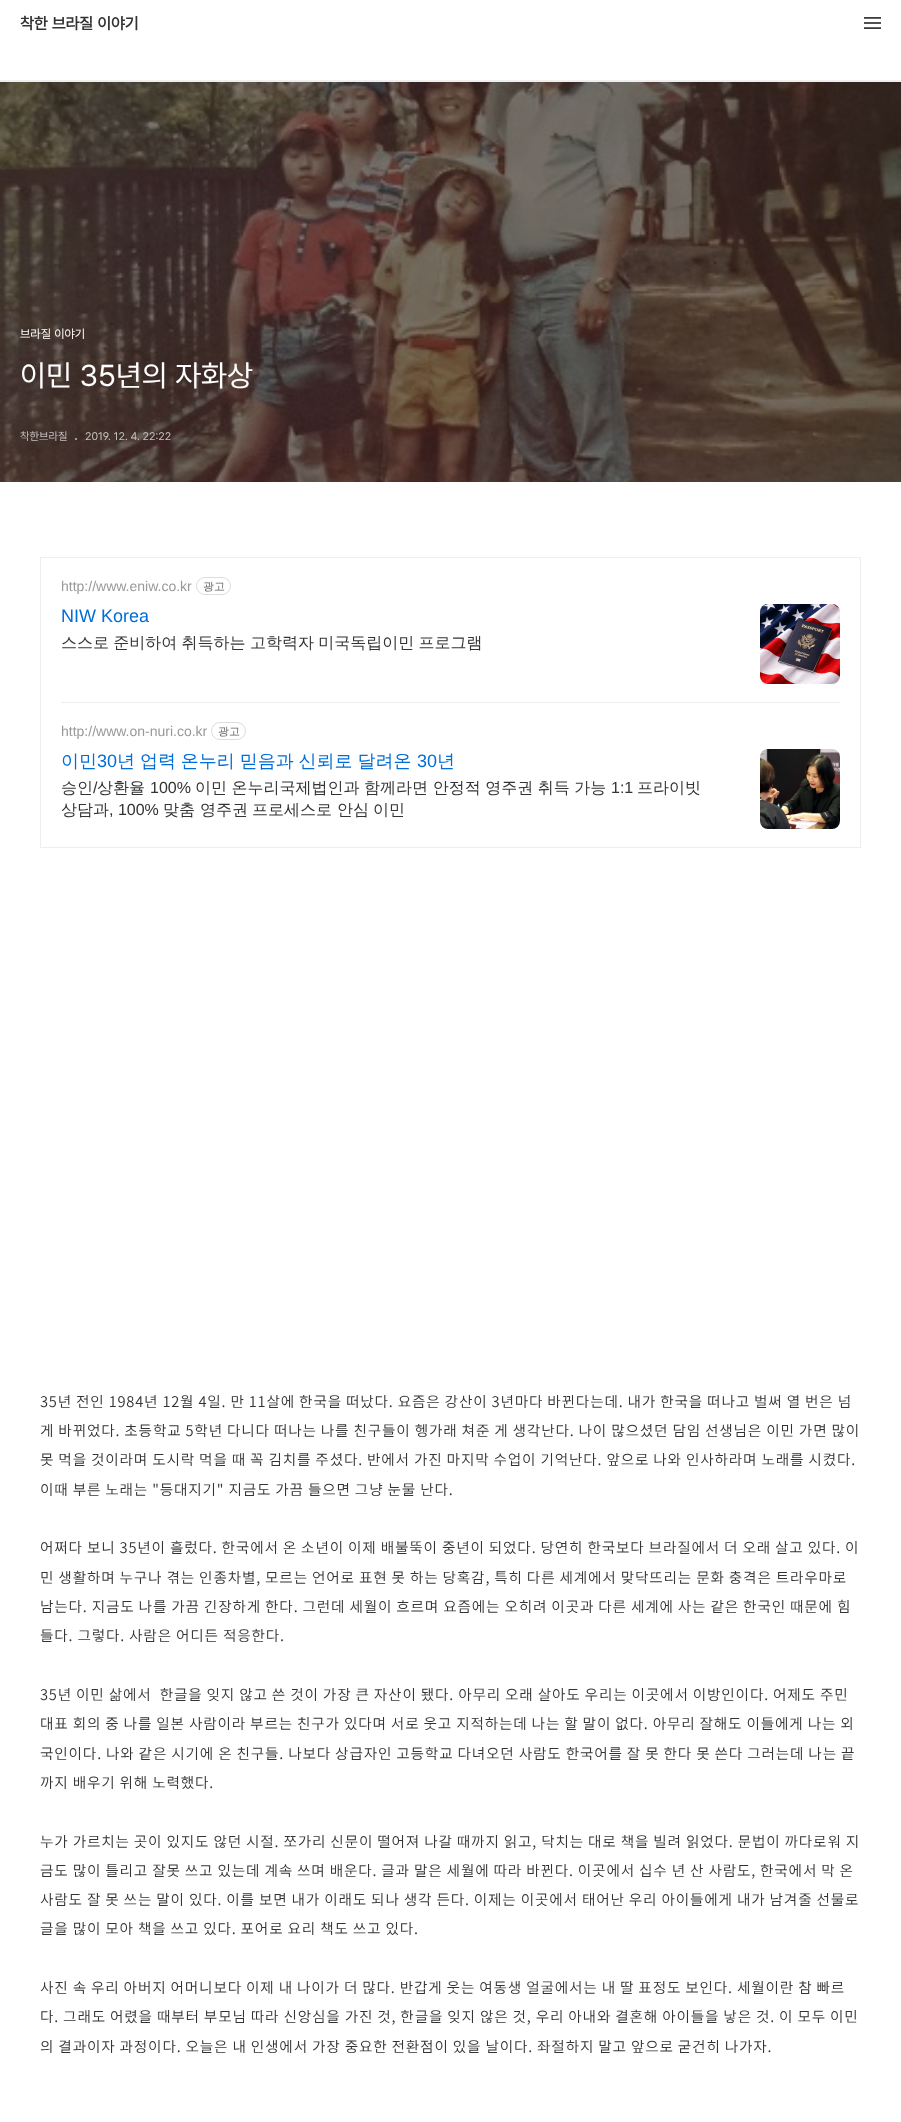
async function draw(canvas) {
	canvas.width = 901;
	canvas.height = 2122;
	const c = canvas.getContext('2d');
	c.miterLimit = 4;
	c.fontKerning = 'normal';
	async function loadImage(src) {
		const img = new Image();
		img.src = src;
		await img.decode();
		return img;
	}

	c.fillStyle = '#fff';
	c.fillRect(0, 0, 901, 2122);
	c.fillStyle = '#efefef';
	c.fillRect(0, 80, 901, 2);
	c.font = 'bold 16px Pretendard';
	c.fillStyle = '#333';
	c.fillText('착한 브라질 이야기', 20, 29);
	c.drawImage(await loadImage('img1.png'), 864, 17, 17, 12);
	c.drawImage(await loadImage('img2.png'), 0, 82, 901, 400);
	c.font = '12px Pretendard';
	c.fillStyle = '#fff';
	c.fillText('브라질 이야기', 20, 338);
	c.font = '30px Pretendard';
	c.fillText('이민 35년의 자화상', 20, 386);
	c.font = '11px Pretendard';
	c.fillStyle = '#c6c1c0';
	c.fillText('착한브라질', 20, 440);
	c.fillStyle = '#c6c1bf';
	c.beginPath();
	c.arc(76, 439, 1, 0, 2 * Math.PI);
	c.fill();
	c.font = '11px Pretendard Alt';
	c.fillStyle = '#c6c1c0';
	c.fillText('2019. 12. 4. 22:22', 85, 440);
	c.strokeStyle = '#eee';
	c.strokeRect(40.5, 557.5, 820, 290);
	c.font = '14px Liberation Sans';
	c.fillStyle = '#999';
	c.fillText('http://www.eniw.co.kr', 61, 591);
	c.beginPath();
	c.roundRect(196.5, 577.5, 34, 17, 8.5);
	c.strokeStyle = '#ddd';
	c.stroke();
	c.font = '500 11px WenQuanYi Zen Hei';
	c.fillStyle = '#666';
	c.fillText('광고', 203, 590);
	c.font = '18px Liberation Sans';
	c.fillStyle = '#016dd7';
	c.fillText('NIW Korea', 61, 622);
	c.wordSpacing = '-0.5px';
	c.font = '500 16px WenQuanYi Zen Hei';
	c.fillStyle = '#333';
	c.fillText('스스로 준비하여 취득하는 고학력자 미국독립이민 프로그램', 61, 648);
	c.drawImage(await loadImage('img3.png'), 760, 604, 80, 80);
	c.fillStyle = '#eee';
	c.fillRect(61, 702, 779, 1);
	c.wordSpacing = '0px';
	c.font = '14px Liberation Sans';
	c.fillStyle = '#999';
	c.fillText('http://www.on-nuri.co.kr', 61, 736);
	c.beginPath();
	c.roundRect(211.5, 722.5, 34, 17, 8.5);
	c.stroke();
	c.font = '500 11px WenQuanYi Zen Hei';
	c.fillStyle = '#666';
	c.fillText('광고', 218, 735);
	c.font = '500 18px WenQuanYi Zen Hei';
	c.fillStyle = '#016dd7';
	c.fillText('이민', 61, 767);
	c.font = '18px Liberation Sans';
	c.fillText('30', 97, 767);
	c.wordSpacing = '-0.5px';
	c.font = '500 18px WenQuanYi Zen Hei';
	c.fillText('년 업력 온누리 믿음과 신뢰로 달려온', 117, 767);
	c.wordSpacing = '0px';
	c.font = '18px Liberation Sans';
	c.fillText('30', 417, 767);
	c.font = '500 18px WenQuanYi Zen Hei';
	c.fillText('년', 437, 767);
	c.font = '500 16px WenQuanYi Zen Hei';
	c.fillStyle = '#333';
	c.fillText('승인', 61, 793);
	c.font = '16px Liberation Sans';
	c.fillText('/', 93, 793);
	c.font = '500 16px WenQuanYi Zen Hei';
	c.fillText('상환율', 97, 793);
	c.font = '16px Liberation Sans';
	c.fillText('100%', 150, 793);
	c.wordSpacing = '-0.25px';
	c.font = '500 16px WenQuanYi Zen Hei';
	c.fillText('이민 온누리국제법인과 함께라면 안정적 영주권 취득 가능', 195, 793);
	c.wordSpacing = '0px';
	c.font = '16px Liberation Sans';
	c.fillText('1:1', 611, 793);
	c.font = '500 16px WenQuanYi Zen Hei';
	c.fillText('프라이빗', 637, 793);
	c.fillText('상담과', 61, 815);
	c.font = '16px Liberation Sans';
	c.fillText(', 100%', 109, 815);
	c.font = '500 16px WenQuanYi Zen Hei';
	for (const [text, x, y] of [
		['맞춤', 163, 815],
		['영주권', 200, 815],
		['프로세스로', 252, 815],
		['안심', 337, 815],
		['이민', 373, 815],
	]) {
		c.fillText(text, x, y);
	}
	c.drawImage(await loadImage('img4.png'), 760, 749, 80, 80);
	c.letterSpacing = '0.8px';
	c.font = '300 14.67px Noto Sans KR';
	for (const [text, x, y] of [
		['35년 전인 1984년 12월 4일. 만 11살에 한국을 떠났다. 요즘은 강산이 3년마다 바뀐다는데. 내가 한국을 떠나고 벌써 열 번은 넘', 40, 1407],
		['게 바뀌었다. 초등학교 5학년 다니다 떠나는 나를 친구들이 헹가래 쳐준 게 생각난다. 나이 많으셨던 담임 선생님은 이민 가면 많이', 40, 1436],
		['못 먹을 것이라며 도시락 먹을 때 꼭 김치를 주셨다. 반에서 가진 마지막 수업이 기억난다. 앞으로 나와 인사하라며 노래를 시켰다.', 40, 1465],
		['이때 부른 노래는 "등대지기" 지금도 가끔 들으면 그냥 눈물 난다.', 40, 1495],
		['어쩌다 보니 35년이 흘렀다. 한국에서 온 소년이 이제 배불뚝이 중년이 되었다. 당연히 한국보다 브라질에서 더 오래 살고 있다. 이', 40, 1553],
		['민 생활하며 누구나 겪는 인종차별, 모르는 언어로 표현 못 하는 당혹감, 특히 다른 세계에서 맞닥뜨리는 문화 충격은 트라우마로', 40, 1583],
		['남는다. 지금도 나를 가끔 긴장하게 한다. 그런데 세월이 흐르며 요즘에는 오히려 이곳과 다른 세계에 사는 같은 한국인 때문에 힘', 40, 1612],
		['들다. 그렇다. 사람은 어디든 적응한다.', 40, 1641],
		['35년 이민 삶에서  한글을 잊지 않고 쓴 것이 가장 큰 자산이 됐다. 아무리 오래 살아도 우리는 이곳에서 이방인이다. 어제도 주민', 40, 1700],
		['대표 회의 중 나를 일본 사람이라 부르는 친구가 있다며 서로 웃고 지적하는데 나는 할 말이 없다. 아무리 잘해도 이들에게 나는 외', 40, 1729],
		['국인이다. 나와 같은 시기에 온 친구들. 나보다 상급자인 고등학교 다녀오던 사람도 한국어를 잘 못 한다 못 쓴다 그러는데 나는 끝', 40, 1759],
		['까지 배우기 위해 노력했다.', 40, 1788],
		['누가 가르치는 곳이 있지도 않던 시절. 쪼가리 신문이 떨어져 나갈 때까지 읽고, 닥치는 대로 책을 빌려 읽었다. 문법이 까다로워 지', 40, 1847],
		['금도 많이 틀리고 잘못 쓰고 있는데 계속 쓰며 배운다. 글과 말은 세월에 따라 바뀐다. 이곳에서 십수 년 산 사람도, 한국에서 막 온', 40, 1876],
		['사람도 잘 못 쓰는 말이 있다. 이를 보면 내가 이래도 되나 생각 든다. 이제는 이곳에서 태어난 우리 아이들에게 내가 남겨줄 선물로', 40, 1905],
		['글을 많이 모아 책을 쓰고 있다. 포어로 요리 책도 쓰고 있다.', 40, 1934],
		['사진 속 우리 아버지 어머니보다 이제 내 나이가 더 많다. 반갑게 웃는 여동생 얼굴에서는 내 딸 표정도 보인다. 세월이란 참 빠르', 40, 1993],
		['다. 그래도 어렸을 때부터 부모님 따라 신앙심을 가진 것, 한글을 잊지 않은 것, 우리 아내와 결혼해 아이들을 낳은 것. 이 모두 이민', 40, 2022],
		['의 결과이자 과정이다. 오늘은 내 인생에서 가장 중요한 전환점이 있을 날이다. 좌절하지 말고 앞으로 굳건히 나가자.', 40, 2052],
	]) {
		c.fillText(text, x, y);
	}
}

draw(document.querySelector('canvas'));
